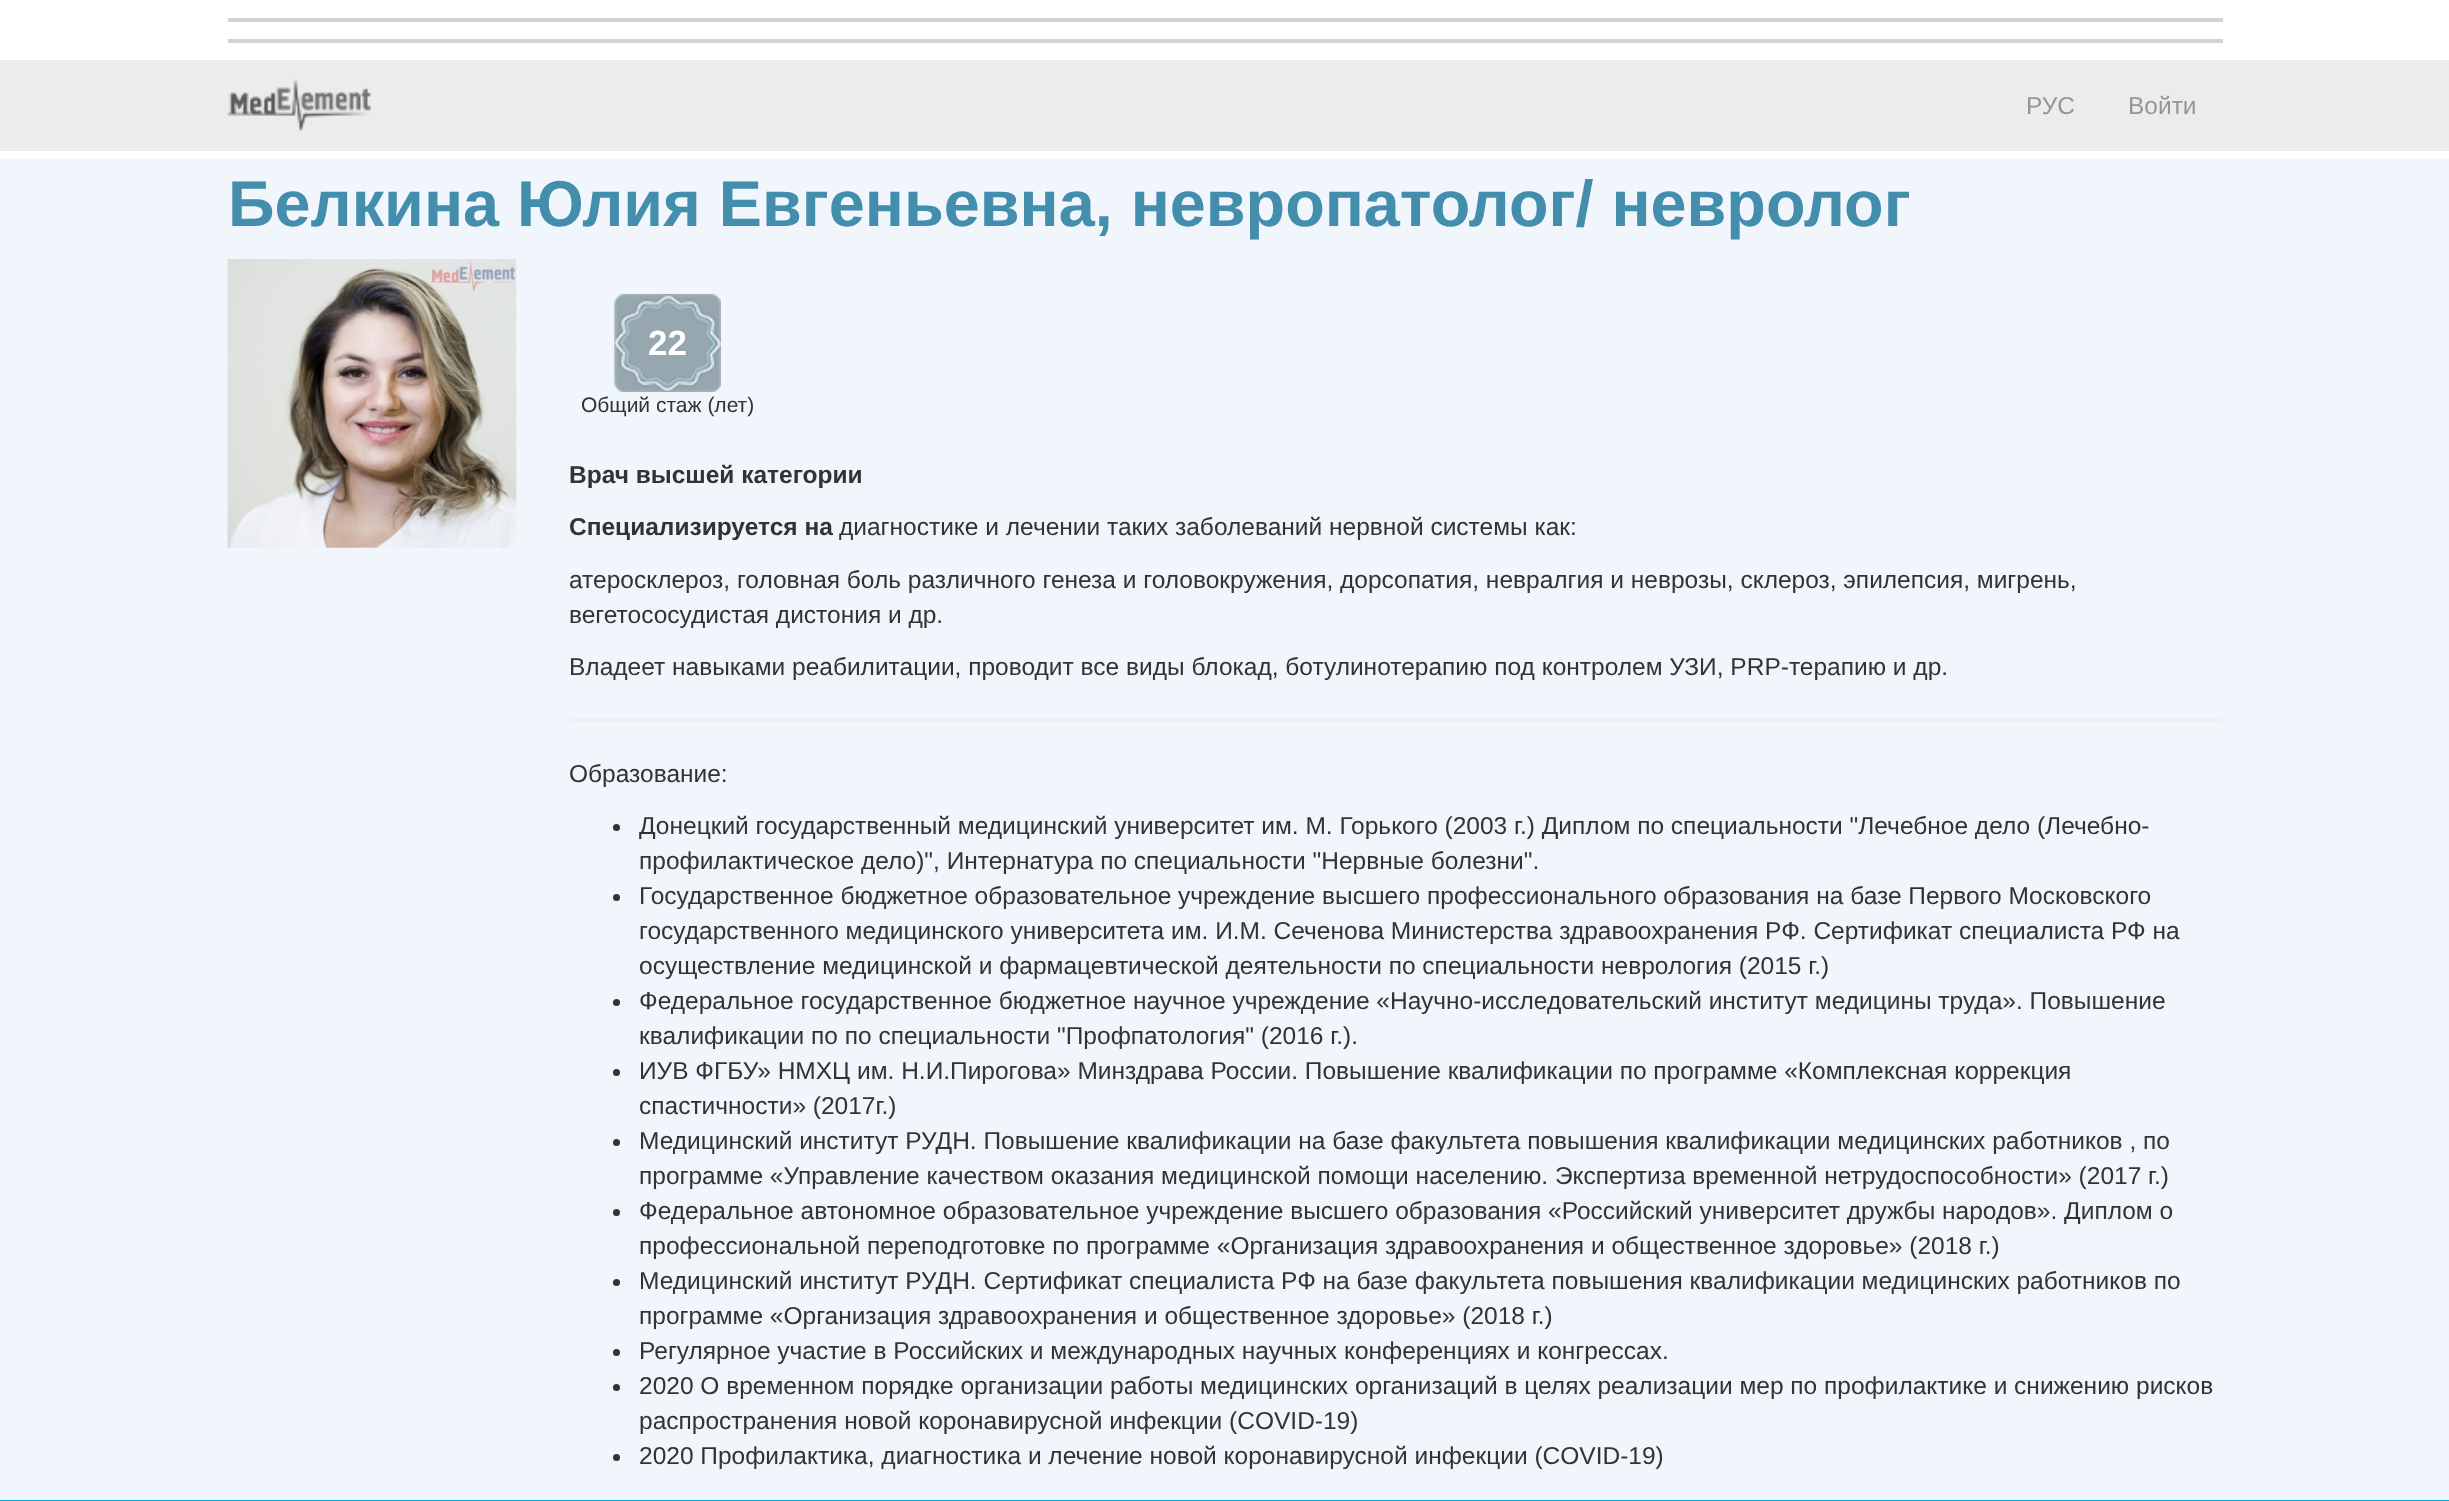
async function draw(canvas) {
	canvas.width = 2449;
	canvas.height = 1501;
	const c = canvas.getContext('2d');
	c.miterLimit = 4;
	c.fontKerning = 'normal';
	async function loadImage(src) {
		const img = new Image();
		img.src = src;
		await img.decode();
		return img;
	}

	c.fillStyle = '#fff';
	c.fillRect(0, 0, 2449, 1501);
	for (const [x, y, w, h, color] of [
		[228, 18, 1995, 4, '#d3d3d3'],
		[228, 39, 1995, 4, '#d3d3d3'],
		[0, 60, 2449, 91, '#ebecec'],
	]) {
		c.fillStyle = color;
		c.fillRect(x, y, w, h);
	}
	c.drawImage(await loadImage('img1.png'), 227, 79, 144, 53);
	c.font = '24.5px Liberation Sans';
	c.fillStyle = '#939598';
	c.fillText('РУС', 2026, 114);
	c.fillText('Войти', 2128, 114);
	c.fillStyle = '#f0f6fb';
	c.fillRect(0, 159, 2449, 1341);
	c.font = 'bold 64.75px Liberation Sans';
	c.fillStyle = '#438dad';
	c.fillText('Белкина Юлия Евгеньевна, невропатолог/ невролог', 228, 226);
	c.drawImage(await loadImage('img2.png'), 227, 259, 290, 289);
	c.drawImage(await loadImage('img3.png'), 614, 294, 107, 98);
	c.font = 'bold 35px Liberation Sans';
	c.fillStyle = '#fff';
	c.fillText('22', 648, 355);
	c.font = '21px Liberation Sans';
	c.fillStyle = '#333';
	c.fillText('Общий стаж (лет)', 581, 412);
	c.font = 'bold 24.5px Liberation Sans';
	c.fillText('Врач высшей категории', 569, 483);
	c.fillText('Специализируется на', 569, 535);
	c.font = '24.5px Liberation Sans';
	for (const [text, x, y] of [
		['диагностике и лечении таких заболеваний нервной системы как:', 839, 535],
		['атеросклероз, головная боль различного генеза и головокружения, дорсопатия, невралгия и неврозы, склероз, эпилепсия, мигрень,', 569, 588],
		['вегетососудистая дистония и др.', 569, 623],
		['Владеет навыками реабилитации, проводит все виды блокад, ботулинотерапию под контролем УЗИ, PRP-терапию и др.', 569, 675],
	]) {
		c.fillText(text, x, y);
	}
	c.fillStyle = '#eee';
	c.fillRect(569, 719, 1654, 2);
	c.fillStyle = '#333';
	c.fillText('Образование:', 569, 782);
	c.beginPath();
	c.arc(616.5, 827.5, 3.5, 0, 2 * Math.PI);
	c.fill();
	c.fillText('Донецкий государственный медицинский университет им. М. Горького (2003 г.) Диплом по специальности "Лечебное дело (Лечебно-', 639, 834);
	c.fillText('профилактическое дело)", Интернатура по специальности "Нервные болезни".', 639, 869);
	c.beginPath();
	c.arc(616.5, 897.5, 3.5, 0, 2 * Math.PI);
	c.fill();
	for (const [text, x, y] of [
		['Государственное бюджетное образовательное учреждение высшего профессионального образования на базе Первого Московского', 639, 904],
		['государственного медицинского университета им. И.М. Сеченова Министерства здравоохранения РФ. Сертификат специалиста РФ на', 639, 939],
		['осуществление медицинской и фармацевтической деятельности по специальности неврология (2015 г.)', 639, 974],
	]) {
		c.fillText(text, x, y);
	}
	c.beginPath();
	c.arc(616.5, 1002.5, 3.5, 0, 2 * Math.PI);
	c.fill();
	c.fillText('Федеральное государственное бюджетное научное учреждение «Научно-исследовательский институт медицины труда». Повышение', 639, 1009);
	c.fillText('квалификации по по специальности "Профпатология" (2016 г.).', 639, 1044);
	c.beginPath();
	c.arc(616.5, 1072.5, 3.5, 0, 2 * Math.PI);
	c.fill();
	c.fillText('ИУВ ФГБУ» НМХЦ им. Н.И.Пирогова» Минздрава России. Повышение квалификации по программе «Комплексная коррекция', 639, 1079);
	c.fillText('спастичности» (2017г.)', 639, 1114);
	c.beginPath();
	c.arc(616.5, 1142.5, 3.5, 0, 2 * Math.PI);
	c.fill();
	c.fillText('Медицинский институт РУДН. Повышение квалификации на базе факультета повышения квалификации медицинских работников , по', 639, 1149);
	c.fillText('программе «Управление качеством оказания медицинской помощи населению. Экспертиза временной нетрудоспособности» (2017 г.)', 639, 1184);
	c.beginPath();
	c.arc(616.5, 1212.5, 3.5, 0, 2 * Math.PI);
	c.fill();
	c.fillText('Федеральное автономное образовательное учреждение высшего образования «Российский университет дружбы народов». Диплом о', 639, 1219);
	c.fillText('профессиональной переподготовке по программе «Организация здравоохранения и общественное здоровье» (2018 г.)', 639, 1254);
	c.beginPath();
	c.arc(616.5, 1282.5, 3.5, 0, 2 * Math.PI);
	c.fill();
	c.fillText('Медицинский институт РУДН. Сертификат специалиста РФ на базе факультета повышения квалификации медицинских работников по', 639, 1289);
	c.fillText('программе «Организация здравоохранения и общественное здоровье» (2018 г.)', 639, 1324);
	c.beginPath();
	c.arc(616.5, 1352.5, 3.5, 0, 2 * Math.PI);
	c.fill();
	c.fillText('Регулярное участие в Российских и международных научных конференциях и конгрессах.', 639, 1359);
	c.beginPath();
	c.arc(616.5, 1387.5, 3.5, 0, 2 * Math.PI);
	c.fill();
	c.fillText('2020 О временном порядке организации работы медицинских организаций в целях реализации мер по профилактике и снижению рисков', 639, 1394);
	c.fillText('распространения новой коронавирусной инфекции (COVID-19)', 639, 1429);
	c.beginPath();
	c.arc(616.5, 1457.5, 3.5, 0, 2 * Math.PI);
	c.fill();
	c.fillText('2020 Профилактика, диагностика и лечение новой коронавирусной инфекции (COVID-19)', 639, 1464);
	c.fillStyle = '#00a8f0';
	c.fillRect(0, 1500, 2449, 1);
}

draw(document.querySelector('canvas'));
